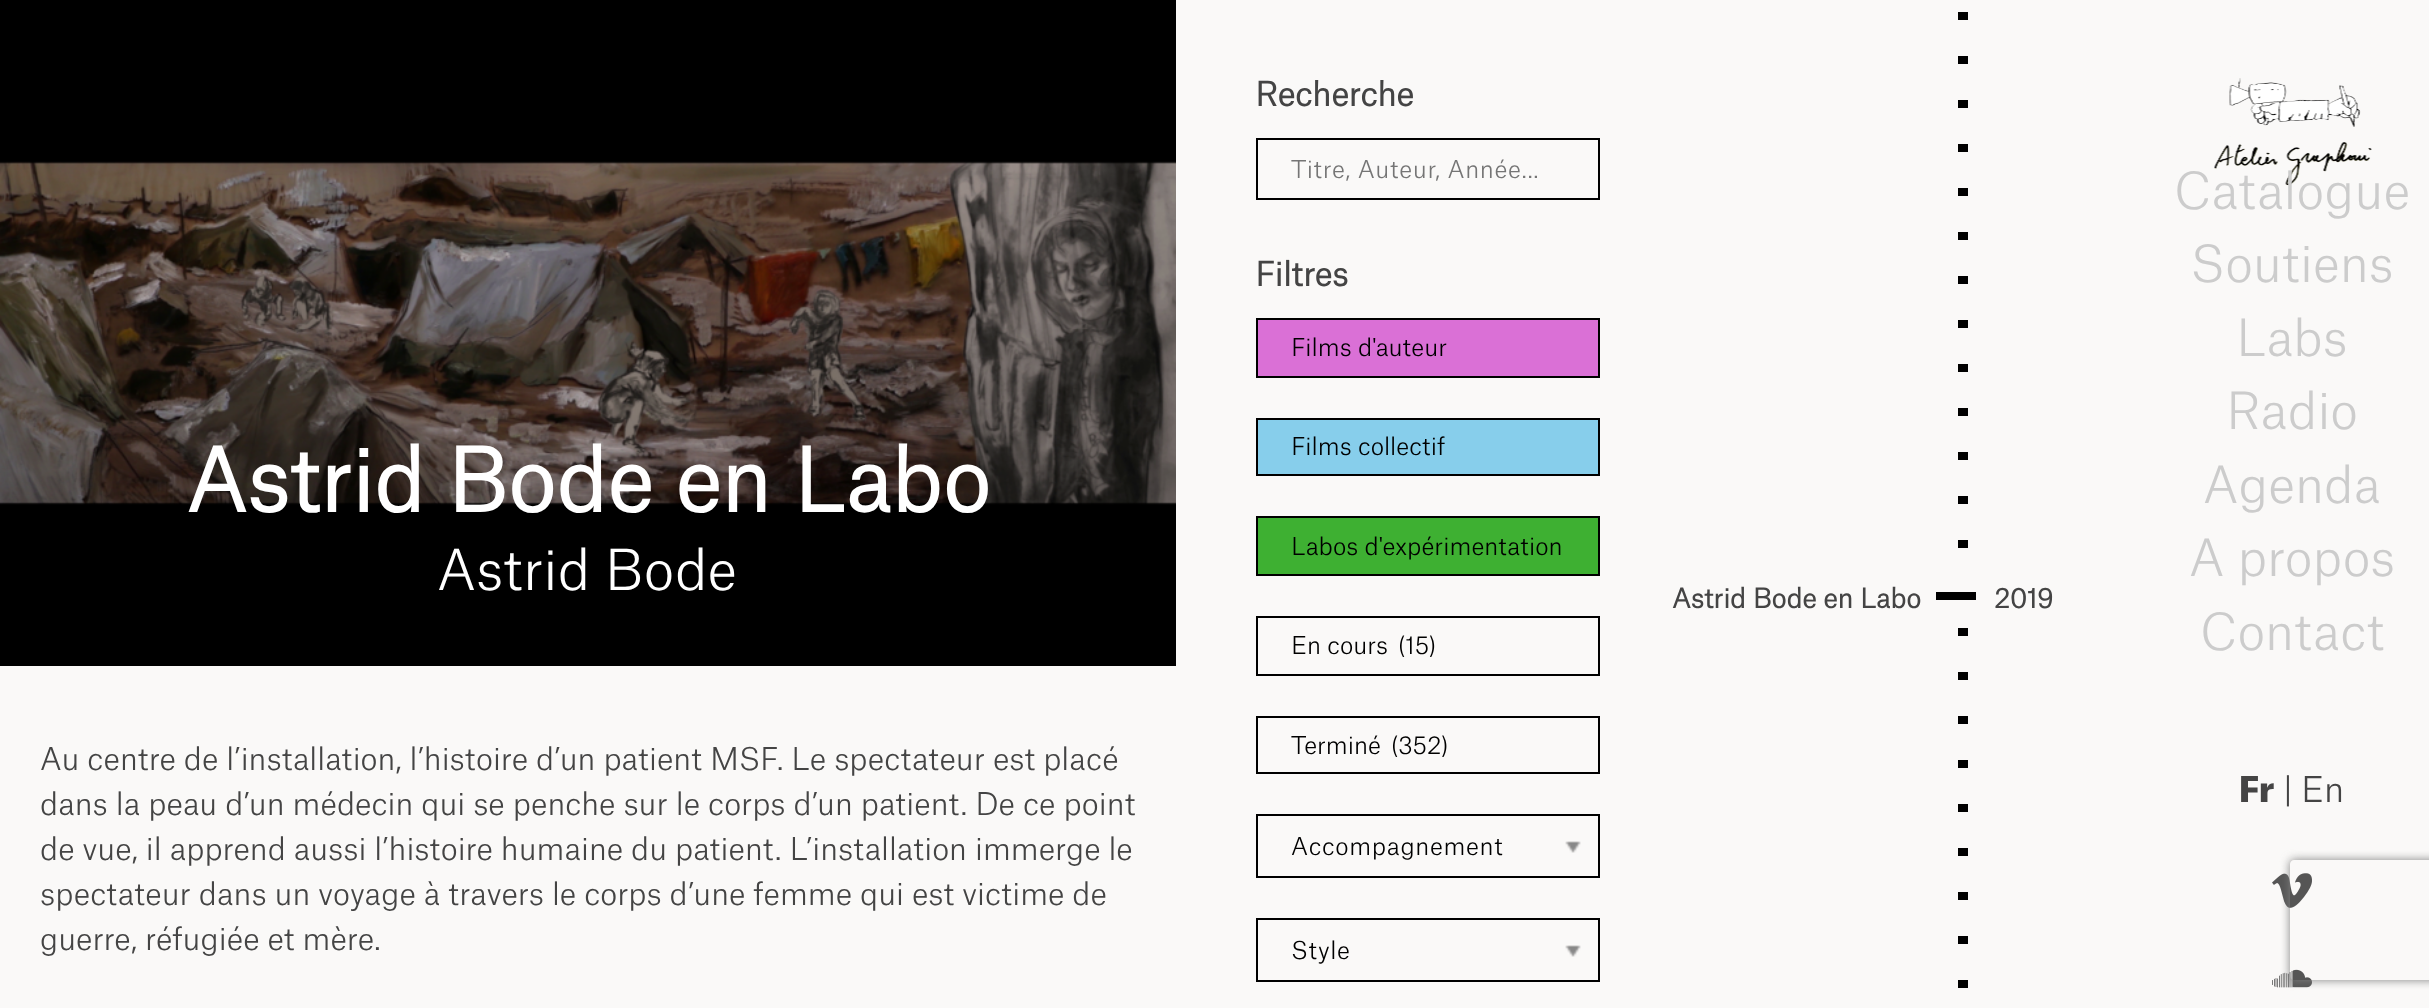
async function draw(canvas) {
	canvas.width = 2429;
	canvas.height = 1008;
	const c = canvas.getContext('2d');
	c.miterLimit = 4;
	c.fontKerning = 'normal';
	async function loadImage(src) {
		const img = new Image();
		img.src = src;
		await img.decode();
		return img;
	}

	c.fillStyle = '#faf9f8';
	c.fillRect(0, 0, 2429, 1008);
	c.drawImage(await loadImage('img1.png'), 0, 0, 1176, 666);
	c.font = 'bold 84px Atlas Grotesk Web';
	c.fillStyle = '#fff';
	c.fillText('Astrid Bode en Labo', 186, 512);
	c.font = '300 54px Atlas Grotesk Web';
	c.fillText('Astrid Bode', 437, 590);
	c.font = '300 30px Atlas Grotesk Web';
	c.fillStyle = '#444';
	for (const [text, x, y] of [
		['Au centre de l’installation, l’histoire d’un patient MSF. Le spectateur est placé', 40, 770],
		['dans la peau d’un médecin qui se penche sur le corps d’un patient. De ce point', 40, 815],
		['de vue, il apprend aussi l’histoire humaine du patient. L’installation immerge le', 40, 860],
		['spectateur dans un voyage à travers le corps d’une femme qui est victime de', 40, 905],
		['guerre, réfugiée et mère.', 40, 950],
	]) {
		c.fillText(text, x, y);
	}
	c.font = 'bold 32px Atlas Grotesk Web';
	c.fillText('Recherche', 1255, 106);
	c.strokeStyle = '#000';
	c.lineWidth = 2;
	c.strokeRect(1257, 139, 342, 60);
	c.letterSpacing = '0.6px';
	c.font = '300 23.6px Atlas Grotesk Web';
	c.fillStyle = '#757575';
	c.fillText('Titre, Auteur, Année...', 1291, 178);
	c.letterSpacing = '0px';
	c.font = 'bold 32px Atlas Grotesk Web';
	c.fillStyle = '#444';
	c.fillText('Filtres', 1255, 286);
	c.fillStyle = '#da70d6';
	c.beginPath();
	c.rect(1257, 319, 342, 58);
	c.fill();
	c.stroke();
	c.font = '300 23.6px Atlas Grotesk Web';
	c.fillStyle = '#000';
	c.fillText('Films d\'auteur', 1291, 356);
	c.fillStyle = '#87ceeb';
	c.beginPath();
	c.rect(1257, 419, 342, 56);
	c.fill();
	c.stroke();
	c.fillStyle = '#000';
	c.fillText('Films collectif', 1291, 455);
	c.fillStyle = '#3eb032';
	c.beginPath();
	c.rect(1257, 517, 342, 58);
	c.fill();
	c.stroke();
	c.fillStyle = '#000';
	c.fillText('Labos d\'expérimentation', 1291, 555);
	c.strokeRect(1257, 617, 342, 58);
	c.fillText('En cours', 1291, 654);
	c.fillText('(15)', 1398, 654);
	c.strokeRect(1257, 717, 342, 56);
	c.fillText('Terminé', 1291, 754);
	c.fillText('(352)', 1391, 754);
	c.strokeRect(1257, 815, 342, 62);
	c.letterSpacing = '0.6px';
	c.fillText('Accompagnement', 1291, 855);
	c.drawImage(await loadImage('img2.png'), 1565, 841, 16, 12);
	c.strokeRect(1257, 919, 342, 62);
	c.fillText('Style', 1291, 959);
	c.drawImage(await loadImage('img2.png'), 1565, 945, 16, 12);
	for (const [x, y, w, h, color] of [
		[1958, 12, 10, 8, '#000'],
		[1958, 56, 10, 8, '#000'],
		[1958, 100, 10, 8, '#000'],
		[1958, 144, 10, 8, '#000'],
		[1958, 188, 10, 8, '#000'],
		[1958, 232, 10, 8, '#000'],
		[1958, 276, 10, 8, '#000'],
		[1958, 320, 10, 8, '#000'],
		[1958, 364, 10, 8, '#000'],
		[1958, 408, 10, 8, '#000'],
		[1958, 452, 10, 8, '#000'],
		[1958, 496, 10, 8, '#000'],
		[1958, 540, 10, 8, '#000'],
	]) {
		c.fillStyle = color;
		c.fillRect(x, y, w, h);
	}
	c.letterSpacing = '0px';
	c.font = 'bold 26px Atlas Grotesk Web';
	c.fillStyle = '#444';
	c.fillText('Astrid Bode en Labo', 1672, 608);
	c.fillStyle = '#000';
	c.fillRect(1936, 592, 40, 8);
	c.fillStyle = '#444';
	c.fillText('2019', 1994, 608);
	for (const [x, y, w, h, color] of [
		[1958, 628, 10, 8, '#000'],
		[1958, 672, 10, 8, '#000'],
		[1958, 716, 10, 8, '#000'],
		[1958, 760, 10, 8, '#000'],
		[1958, 804, 10, 8, '#000'],
		[1958, 848, 10, 8, '#000'],
		[1958, 892, 10, 8, '#000'],
		[1958, 936, 10, 8, '#000'],
		[1958, 980, 10, 8, '#000'],
	]) {
		c.fillStyle = color;
		c.fillRect(x, y, w, h);
	}
	c.drawImage(await loadImage('img3.png'), 2214, 78, 158, 108);
	c.font = '300 49px Atlas Grotesk Web';
	c.fillStyle = '#ccc';
	for (const [text, x, y] of [
		['Catalogue', 2174, 209],
		['Soutiens', 2190, 282],
		['Labs', 2236, 356],
		['Radio', 2226, 429],
		['Agenda', 2203, 503],
		['A propos', 2189, 576],
		['Contact', 2200, 650],
	]) {
		c.fillText(text, x, y);
	}
	c.font = '900 34px Atlas Grotesk Web';
	c.fillStyle = '#444';
	c.fillText('Fr', 2239, 802);
	c.font = '300 34px Atlas Grotesk Web';
	c.fillText('|', 2283, 802);
	c.fillText('En', 2301, 802);
	c.drawImage(await loadImage('img4.png'), 2272, 873, 40, 35);
	c.drawImage(await loadImage('img5.png'), 2272, 969, 40, 19);
	c.save();
	c.beginPath();
	c.moveTo(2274, 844);
	c.lineTo(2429, 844);
	c.lineTo(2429, 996);
	c.lineTo(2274, 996);
	c.closePath();
	c.moveTo(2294, 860);
	c.lineTo(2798, 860);
	c.bezierCurveTo(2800, 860, 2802, 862, 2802, 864);
	c.lineTo(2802, 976);
	c.bezierCurveTo(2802, 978, 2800, 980, 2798, 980);
	c.lineTo(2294, 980);
	c.bezierCurveTo(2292, 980, 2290, 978, 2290, 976);
	c.lineTo(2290, 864);
	c.bezierCurveTo(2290, 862, 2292, 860, 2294, 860);
	c.closePath();
	c.clip('evenodd');
	c.fillStyle = '#808080';
	c.filter = 'blur(5px)';
	c.beginPath();
	c.roundRect(2290, 860, 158, 120, 4);
	c.fill();
	c.filter = 'none';
	c.restore();
}

draw(document.querySelector('canvas'));
